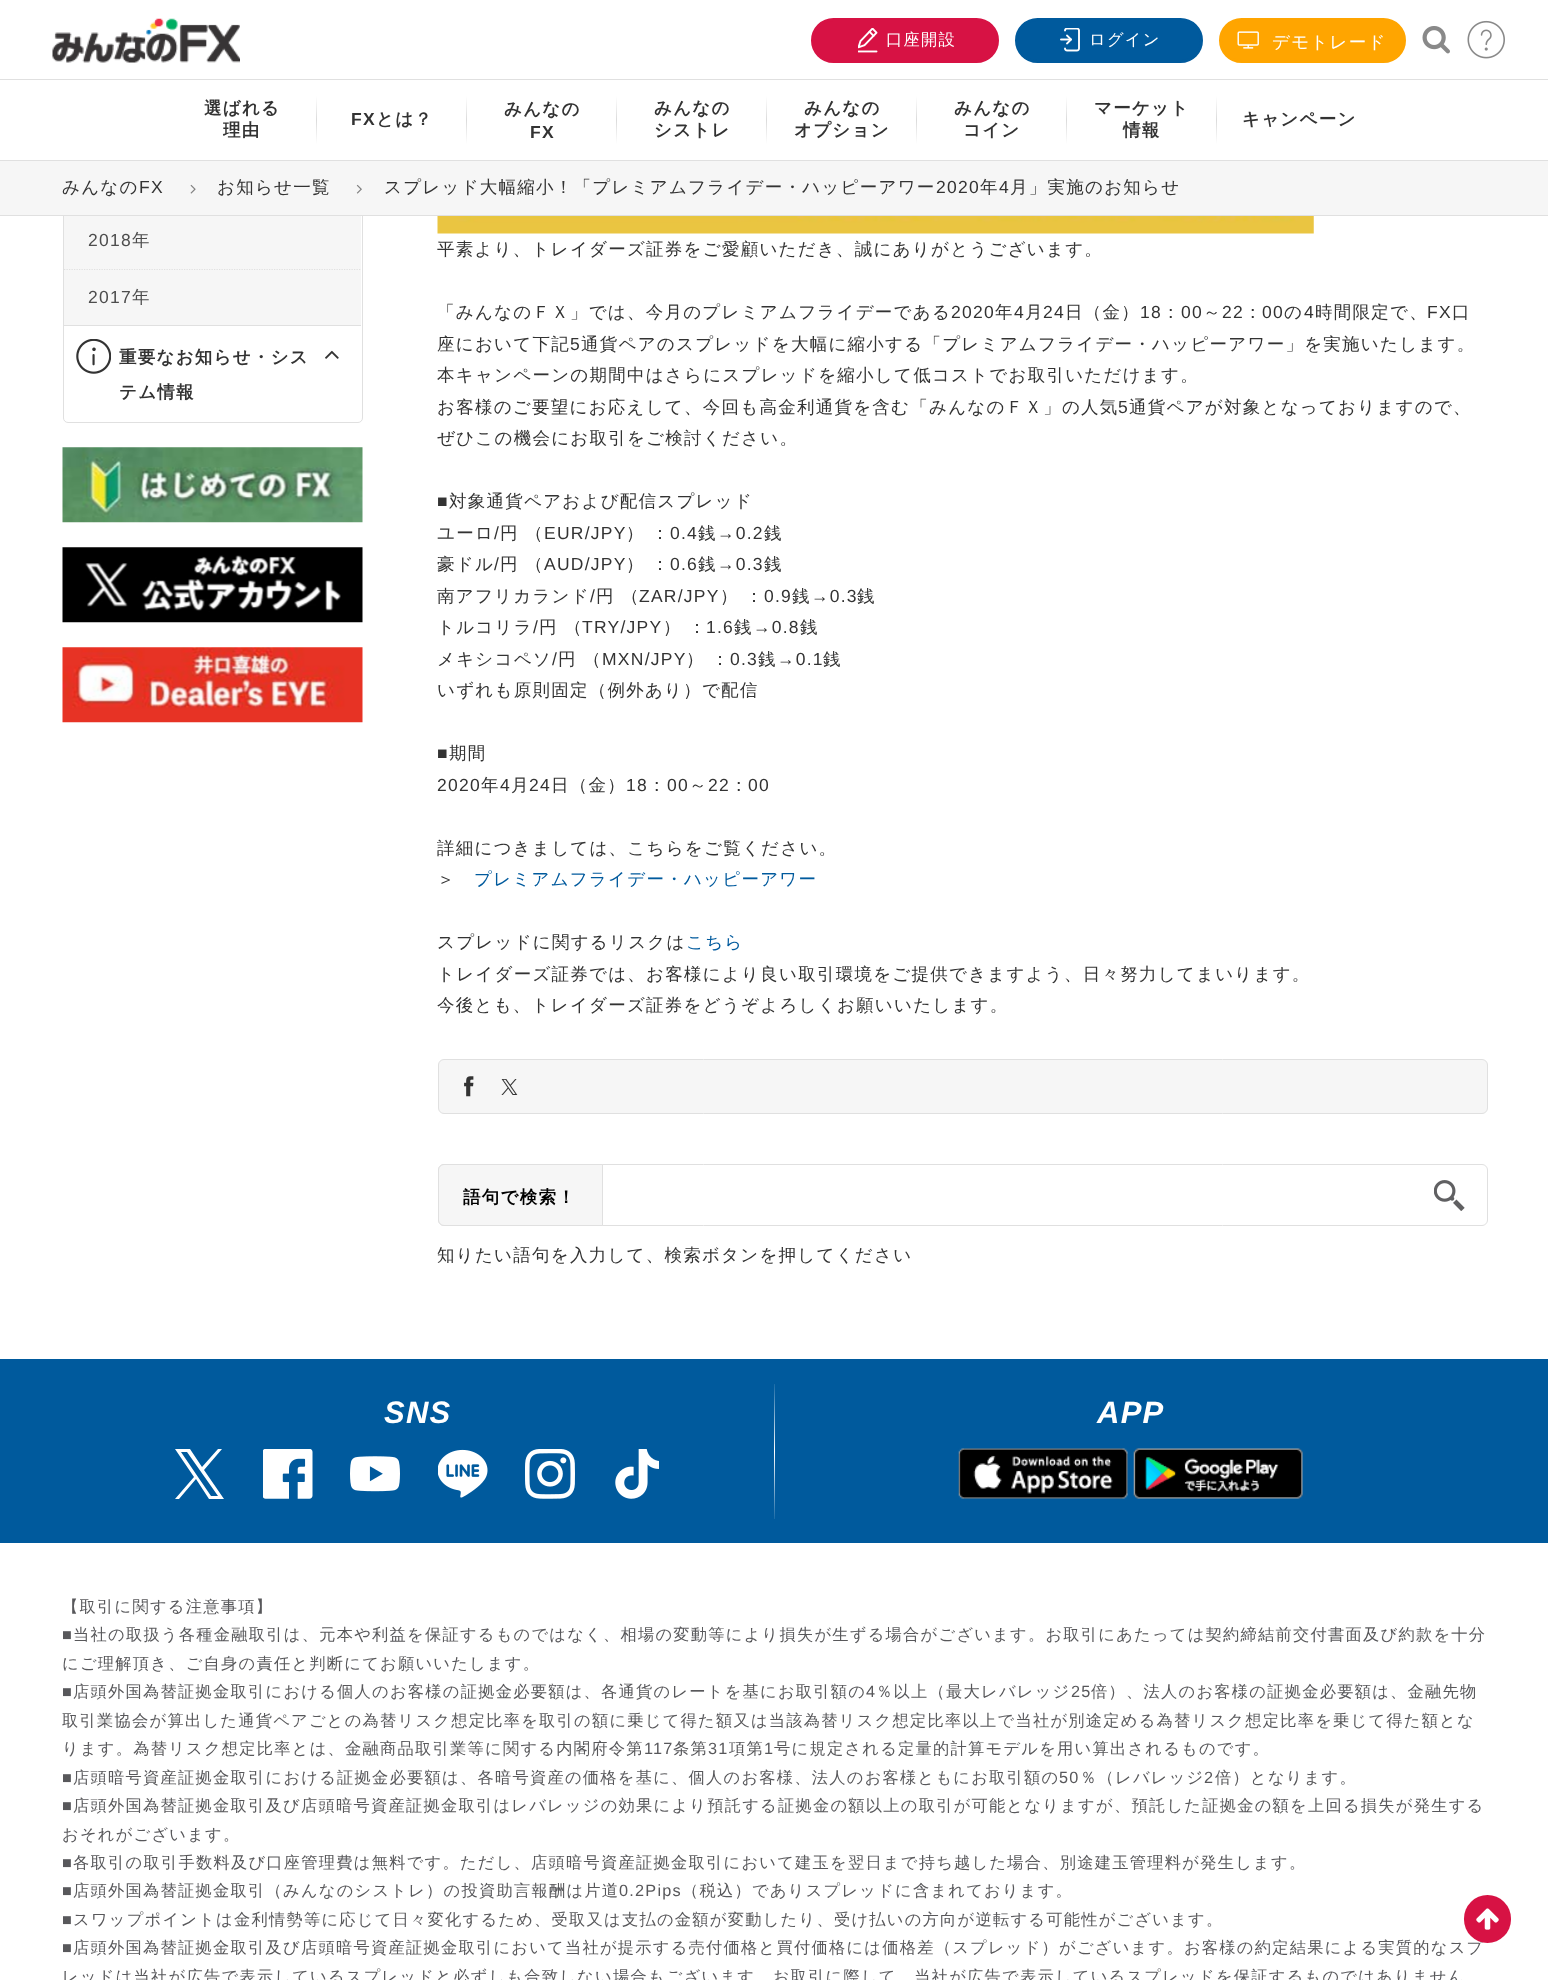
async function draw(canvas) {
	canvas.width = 1548;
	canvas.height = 1980;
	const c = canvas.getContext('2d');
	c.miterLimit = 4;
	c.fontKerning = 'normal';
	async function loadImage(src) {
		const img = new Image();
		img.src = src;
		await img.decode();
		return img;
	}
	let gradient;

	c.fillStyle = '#fff';
	c.fillRect(0, 0, 1548, 1980);
	c.beginPath();
	c.roundRect(63.5, -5.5, 299, 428, 4.5);
	c.strokeStyle = '#e0e0e0';
	c.stroke();
	c.fillRect(63, 0, 300, 79);
	c.fillStyle = '#e0e0e0';
	c.fillRect(0, 79, 1548, 1);
	c.drawImage(await loadImage('img1.png'), 52, 18, 188, 45);
	c.fillStyle = '#d71244';
	c.beginPath();
	c.roundRect(812.5, 19.5, 185, 42, 21);
	c.fill();
	c.strokeStyle = '#d71244';
	c.lineWidth = 3;
	c.stroke();
	c.drawImage(await loadImage('img2.png'), 858, 28, 20, 25);
	c.letterSpacing = '1.25px';
	c.font = '500 16.25px WenQuanYi Zen Hei';
	c.fillStyle = '#fff';
	c.fillText('口座開設', 886, 45);
	c.fillStyle = '#005a9d';
	c.beginPath();
	c.roundRect(1016.5, 19.5, 185, 42, 21);
	c.fill();
	c.strokeStyle = '#005a9d';
	c.stroke();
	c.drawImage(await loadImage('img3.png'), 1060, 28, 20, 24);
	c.fillStyle = '#fff';
	c.fillText('ログイン', 1089, 45);
	c.fillStyle = '#ffa500';
	c.beginPath();
	c.roundRect(1220.5, 19.5, 184, 42, 21);
	c.fill();
	c.strokeStyle = '#ffa500';
	c.stroke();
	c.drawImage(await loadImage('img4.png'), 1237, 31, 22, 18);
	c.font = '500 17.5px WenQuanYi Zen Hei';
	c.fillStyle = '#fff';
	c.fillText('デモトレード', 1272, 48);
	c.drawImage(await loadImage('img5.png'), 1422, 26, 28, 28);
	c.drawImage(await loadImage('img6.png'), 1467, 20, 38, 39);
	c.fillRect(63, 80, 300, 80);
	c.fillStyle = '#e0e0e0';
	c.fillRect(0, 160, 1548, 1);
	c.font = 'bold 17.5px WenQuanYi Zen Hei';
	c.fillStyle = '#333';
	c.fillText('選ばれる', 204, 114);
	c.fillText('理由', 223, 136);
	gradient = c.createLinearGradient(317, 96, 317, 144);
	gradient.addColorStop(0, '#fff');
	gradient.addColorStop(0.5, '#dbdbdb');
	gradient.addColorStop(1, '#fff');
	c.fillStyle = gradient;
	c.fillRect(316, 96, 1, 48);
	c.font = 'bold 17.5px Liberation Sans';
	c.fillStyle = '#333';
	c.fillText('FX', 351, 125);
	c.font = 'bold 17.5px WenQuanYi Zen Hei';
	c.fillText('とは？', 376, 125);
	gradient = c.createLinearGradient(467, 96, 467, 144);
	gradient.addColorStop(0, '#fff');
	gradient.addColorStop(0.5, '#dbdbdb');
	gradient.addColorStop(1, '#fff');
	c.fillStyle = gradient;
	c.fillRect(466, 96, 1, 48);
	c.fillStyle = '#333';
	c.fillText('みんなの', 504, 115);
	c.font = 'bold 17.5px Liberation Sans';
	c.fillText('FX', 530, 138);
	gradient = c.createLinearGradient(617, 96, 617, 144);
	gradient.addColorStop(0, '#fff');
	gradient.addColorStop(0.5, '#dbdbdb');
	gradient.addColorStop(1, '#fff');
	c.fillStyle = gradient;
	c.fillRect(616, 96, 1, 48);
	c.font = 'bold 17.5px WenQuanYi Zen Hei';
	c.fillStyle = '#333';
	c.fillText('みんなの', 654, 114);
	c.fillText('シストレ', 654, 136);
	gradient = c.createLinearGradient(767, 96, 767, 144);
	gradient.addColorStop(0, '#fff');
	gradient.addColorStop(0.5, '#dbdbdb');
	gradient.addColorStop(1, '#fff');
	c.fillStyle = gradient;
	c.fillRect(766, 96, 1, 48);
	c.fillStyle = '#333';
	c.fillText('みんなの', 804, 114);
	c.fillText('オプション', 794, 136);
	gradient = c.createLinearGradient(917, 96, 917, 144);
	gradient.addColorStop(0, '#fff');
	gradient.addColorStop(0.5, '#dbdbdb');
	gradient.addColorStop(1, '#fff');
	c.fillStyle = gradient;
	c.fillRect(916, 96, 1, 48);
	c.fillStyle = '#333';
	c.fillText('みんなの', 954, 114);
	c.fillText('コイン', 963, 136);
	gradient = c.createLinearGradient(1067, 96, 1067, 144);
	gradient.addColorStop(0, '#fff');
	gradient.addColorStop(0.5, '#dbdbdb');
	gradient.addColorStop(1, '#fff');
	c.fillStyle = gradient;
	c.fillRect(1066, 96, 1, 48);
	c.fillStyle = '#333';
	c.fillText('マーケット', 1094, 114);
	c.fillText('情報', 1123, 136);
	gradient = c.createLinearGradient(1217, 96, 1217, 144);
	gradient.addColorStop(0, '#fff');
	gradient.addColorStop(0.5, '#dbdbdb');
	gradient.addColorStop(1, '#fff');
	c.fillStyle = gradient;
	c.fillRect(1216, 96, 1, 48);
	c.fillStyle = '#333';
	c.fillText('キャンペーン', 1242, 125);
	c.fillStyle = '#f6f6f6';
	c.fillRect(0, 161, 1548, 54);
	c.fillStyle = '#e0e0e0';
	c.fillRect(0, 215, 1548, 1);
	c.font = '500 17.5px WenQuanYi Zen Hei';
	c.fillStyle = '#333';
	c.fillText('みんなの', 62, 193);
	c.font = '17.5px Liberation Sans';
	c.fillText('FX', 139, 193);
	c.drawImage(await loadImage('img7.png'), 190, 184, 6, 10);
	c.font = '500 17.5px WenQuanYi Zen Hei';
	c.fillText('お知らせ一覧', 217, 193);
	c.drawImage(await loadImage('img8.png'), 356, 184, 6, 10);
	c.fillText('スプレッド大幅縮小！「プレミアムフライデー・ハッピーアワー', 384, 193);
	c.font = '17.5px Liberation Sans';
	c.fillText('2020', 936, 193);
	c.font = '500 17.5px WenQuanYi Zen Hei';
	c.fillText('年', 980, 193);
	c.font = '17.5px Liberation Sans';
	c.fillText('4', 999, 193);
	c.font = '500 17.5px WenQuanYi Zen Hei';
	c.fillText('月」実施のお知らせ', 1010, 193);
	c.fillStyle = '#f6f6f6';
	c.fillRect(64, 216, 297, 109);
	c.fillStyle = '#e0e0e0';
	c.fillRect(64, 325, 297, 1);
	c.beginPath();
	c.moveTo(64, 269.5);
	c.lineTo(361, 269.5);
	c.strokeStyle = '#e0e0e0';
	c.lineWidth = 1.2;
	c.setLineDash([1.25, 1.25]);
	c.stroke();
	c.font = '17.5px Liberation Sans';
	c.fillStyle = '#4d4d4d';
	c.fillText('2018', 88, 246);
	c.font = '500 17.5px WenQuanYi Zen Hei';
	c.fillText('年', 132, 246);
	c.font = '17.5px Liberation Sans';
	c.fillText('2017', 88, 303);
	c.font = '500 17.5px WenQuanYi Zen Hei';
	c.fillText('年', 132, 303);
	c.drawImage(await loadImage('img9.png'), 76, 339, 35, 35);
	c.font = 'bold 17.5px WenQuanYi Zen Hei';
	c.fillStyle = '#333';
	c.fillText('重要なお知らせ・シス', 119, 363);
	c.fillText('テム情報', 119, 398);
	c.drawImage(await loadImage('img10.png'), 325, 350, 14, 9);
	c.drawImage(await loadImage('img11.png'), 62, 447, 301, 76);
	c.drawImage(await loadImage('img12.png'), 62, 547, 301, 76);
	c.drawImage(await loadImage('img13.png'), 62, 647, 301, 76);
	c.drawImage(await loadImage('img14.png'), 437, 216, 877, 18);
	c.font = '500 17.5px WenQuanYi Zen Hei';
	c.fillText('平素より、トレイダーズ証券をご愛顧いただき、誠にありがとうございます。', 437, 255);
	c.fillText('「みんなのＦＸ」では、今月のプレミアムフライデーである', 437, 318);
	c.font = '17.5px Liberation Sans';
	c.fillText('2020', 951, 318);
	c.font = '500 17.5px WenQuanYi Zen Hei';
	c.fillText('年', 995, 318);
	c.font = '17.5px Liberation Sans';
	c.fillText('4', 1014, 318);
	c.font = '500 17.5px WenQuanYi Zen Hei';
	c.fillText('月', 1025, 318);
	c.font = '17.5px Liberation Sans';
	c.fillText('24', 1043, 318);
	c.font = '500 17.5px WenQuanYi Zen Hei';
	c.fillText('日（金）', 1065, 318);
	c.font = '17.5px Liberation Sans';
	c.fillText('18', 1140, 318);
	c.font = '500 17.5px WenQuanYi Zen Hei';
	c.fillText('：', 1162, 318);
	c.font = '17.5px Liberation Sans';
	c.fillText('00', 1181, 318);
	c.font = '500 17.5px WenQuanYi Zen Hei';
	c.fillText('～', 1203, 318);
	c.font = '17.5px Liberation Sans';
	c.fillText('22', 1222, 318);
	c.font = '500 17.5px WenQuanYi Zen Hei';
	c.fillText('：', 1244, 318);
	c.font = '17.5px Liberation Sans';
	c.fillText('00', 1262, 318);
	c.font = '500 17.5px WenQuanYi Zen Hei';
	c.fillText('の', 1284, 318);
	c.font = '17.5px Liberation Sans';
	c.fillText('4', 1304, 318);
	c.font = '500 17.5px WenQuanYi Zen Hei';
	c.fillText('時間限定で、', 1315, 318);
	c.font = '17.5px Liberation Sans';
	c.fillText('FX', 1427, 318);
	c.font = '500 17.5px WenQuanYi Zen Hei';
	c.fillText('口', 1452, 318);
	c.fillText('座において下記', 437, 350);
	c.font = '17.5px Liberation Sans';
	c.fillText('5', 570, 350);
	c.font = '500 17.5px WenQuanYi Zen Hei';
	for (const [text, x, y] of [
		['通貨ペアのスプレッドを大幅に縮小する「プレミアムフライデー・ハッピーアワー」を実施いたします。', 581, 350],
		['本キャンペーンの期間中はさらにスプレッドを縮小して低コストでお取引いただけます。', 437, 381],
		['お客様のご要望にお応えして、今回も高金利通貨を含む「みんなのＦＸ」の人気', 437, 413],
	]) {
		c.fillText(text, x, y);
	}
	c.font = '17.5px Liberation Sans';
	c.fillText('5', 1118, 413);
	c.font = '500 17.5px WenQuanYi Zen Hei';
	c.fillText('通貨ペアが対象となっておりますので、', 1129, 413);
	c.fillText('ぜひこの機会にお取引をご検討ください。', 437, 444);
	c.font = '17.5px Liberation Sans';
	c.fillText('■', 437, 507);
	c.font = '500 17.5px WenQuanYi Zen Hei';
	c.fillText('対象通貨ペアおよび配信スプレッド', 449, 507);
	c.fillText('ユーロ', 437, 539);
	c.font = '17.5px Liberation Sans';
	c.fillText('/', 494, 539);
	c.font = '500 17.5px WenQuanYi Zen Hei';
	c.fillText('円 （', 500, 539);
	c.font = '17.5px Liberation Sans';
	c.fillText('EUR/JPY', 544, 539);
	c.font = '500 17.5px WenQuanYi Zen Hei';
	c.fillText('） ：', 626, 539);
	c.font = '17.5px Liberation Sans';
	c.fillText('0.4', 670, 539);
	c.font = '500 17.5px WenQuanYi Zen Hei';
	c.fillText('銭', 698, 539);
	c.font = '17.5px Liberation Sans';
	c.fillText('→0.2', 717, 539);
	c.font = '500 17.5px WenQuanYi Zen Hei';
	c.fillText('銭', 764, 539);
	c.fillText('豪ドル', 437, 570);
	c.font = '17.5px Liberation Sans';
	c.fillText('/', 494, 570);
	c.font = '500 17.5px WenQuanYi Zen Hei';
	c.fillText('円 （', 500, 570);
	c.font = '17.5px Liberation Sans';
	c.fillText('AUD/JPY', 544, 570);
	c.font = '500 17.5px WenQuanYi Zen Hei';
	c.fillText('） ：', 626, 570);
	c.font = '17.5px Liberation Sans';
	c.fillText('0.6', 670, 570);
	c.font = '500 17.5px WenQuanYi Zen Hei';
	c.fillText('銭', 698, 570);
	c.font = '17.5px Liberation Sans';
	c.fillText('→0.3', 717, 570);
	c.font = '500 17.5px WenQuanYi Zen Hei';
	c.fillText('銭', 764, 570);
	c.fillText('南アフリカランド', 437, 602);
	c.font = '17.5px Liberation Sans';
	c.fillText('/', 590, 602);
	c.font = '500 17.5px WenQuanYi Zen Hei';
	c.fillText('円 （', 596, 602);
	c.font = '17.5px Liberation Sans';
	c.fillText('ZAR/JPY', 639, 602);
	c.font = '500 17.5px WenQuanYi Zen Hei';
	c.fillText('） ：', 720, 602);
	c.font = '17.5px Liberation Sans';
	c.fillText('0.9', 764, 602);
	c.font = '500 17.5px WenQuanYi Zen Hei';
	c.fillText('銭', 792, 602);
	c.font = '17.5px Liberation Sans';
	c.fillText('→0.3', 811, 602);
	c.font = '500 17.5px WenQuanYi Zen Hei';
	c.fillText('銭', 857, 602);
	c.fillText('トルコリラ', 437, 633);
	c.font = '17.5px Liberation Sans';
	c.fillText('/', 533, 633);
	c.font = '500 17.5px WenQuanYi Zen Hei';
	c.fillText('円 （', 539, 633);
	c.font = '17.5px Liberation Sans';
	c.fillText('TRY/JPY', 582, 633);
	c.font = '500 17.5px WenQuanYi Zen Hei';
	c.fillText('） ：', 663, 633);
	c.font = '17.5px Liberation Sans';
	c.fillText('1.6', 706, 633);
	c.font = '500 17.5px WenQuanYi Zen Hei';
	c.fillText('銭', 734, 633);
	c.font = '17.5px Liberation Sans';
	c.fillText('→0.8', 753, 633);
	c.font = '500 17.5px WenQuanYi Zen Hei';
	c.fillText('銭', 800, 633);
	c.fillText('メキシコペソ', 437, 665);
	c.font = '17.5px Liberation Sans';
	c.fillText('/', 552, 665);
	c.font = '500 17.5px WenQuanYi Zen Hei';
	c.fillText('円 （', 558, 665);
	c.font = '17.5px Liberation Sans';
	c.fillText('MXN/JPY', 602, 665);
	c.font = '500 17.5px WenQuanYi Zen Hei';
	c.fillText('） ：', 686, 665);
	c.font = '17.5px Liberation Sans';
	c.fillText('0.3', 730, 665);
	c.font = '500 17.5px WenQuanYi Zen Hei';
	c.fillText('銭', 758, 665);
	c.font = '17.5px Liberation Sans';
	c.fillText('→0.1', 777, 665);
	c.font = '500 17.5px WenQuanYi Zen Hei';
	c.fillText('銭', 823, 665);
	c.fillText('いずれも原則固定（例外あり）で配信', 437, 696);
	c.font = '17.5px Liberation Sans';
	c.fillText('■', 437, 759);
	c.font = '500 17.5px WenQuanYi Zen Hei';
	c.fillText('期間', 449, 759);
	c.font = '17.5px Liberation Sans';
	c.fillText('2020', 437, 791);
	c.font = '500 17.5px WenQuanYi Zen Hei';
	c.fillText('年', 481, 791);
	c.font = '17.5px Liberation Sans';
	c.fillText('4', 500, 791);
	c.font = '500 17.5px WenQuanYi Zen Hei';
	c.fillText('月', 511, 791);
	c.font = '17.5px Liberation Sans';
	c.fillText('24', 529, 791);
	c.font = '500 17.5px WenQuanYi Zen Hei';
	c.fillText('日（金）', 551, 791);
	c.font = '17.5px Liberation Sans';
	c.fillText('18', 626, 791);
	c.font = '500 17.5px WenQuanYi Zen Hei';
	c.fillText('：', 648, 791);
	c.font = '17.5px Liberation Sans';
	c.fillText('00', 667, 791);
	c.font = '500 17.5px WenQuanYi Zen Hei';
	c.fillText('～', 689, 791);
	c.font = '17.5px Liberation Sans';
	c.fillText('22', 708, 791);
	c.font = '500 17.5px WenQuanYi Zen Hei';
	c.fillText('：', 730, 791);
	c.font = '17.5px Liberation Sans';
	c.fillText('00', 748, 791);
	c.font = '500 17.5px WenQuanYi Zen Hei';
	c.fillText('詳細につきましては、こちらをご覧ください。', 437, 854);
	c.fillText('＞', 437, 885);
	c.fillStyle = '#005a9d';
	c.fillText('プレミアムフライデー・ハッピーアワー', 474, 885);
	c.fillStyle = '#333';
	c.fillText('スプレッドに関するリスクは', 437, 948);
	c.fillStyle = '#005a9d';
	c.fillText('こちら', 686, 948);
	c.fillStyle = '#333';
	c.fillText('トレイダーズ証券では、お客様により良い取引環境をご提供できますよう、日々努力してまいります。', 437, 980);
	c.fillText('今後とも、トレイダーズ証券をどうぞよろしくお願いいたします。', 437, 1011);
	c.fillStyle = '#f6f6f6';
	c.beginPath();
	c.roundRect(438.5, 1059.5, 1049, 54, 5.5);
	c.fill();
	c.lineWidth = 1;
	c.setLineDash([]);
	c.stroke();
	c.drawImage(await loadImage('img15.png'), 464, 1076, 10, 21);
	c.drawImage(await loadImage('img16.png'), 501, 1079, 17, 16);
	c.beginPath();
	c.roundRect(438.5, 1164.5, 1049, 61, 5.5);
	c.stroke();
	c.beginPath();
	c.roundRect(438.5, 1164.5, 164, 61, [5.5, 0, 0, 5.5]);
	c.fill();
	c.stroke();
	c.font = 'bold 17.5px WenQuanYi Zen Hei';
	c.fillStyle = '#000';
	c.fillText('語句で検索！', 463, 1203);
	c.drawImage(await loadImage('img17.png'), 1434, 1180, 31, 31);
	c.font = '500 17.5px WenQuanYi Zen Hei';
	c.fillStyle = '#333';
	c.fillText('知りたい語句を入力して、検索ボタンを押してください', 437, 1261);
	c.fillStyle = '#005a9d';
	c.fillRect(0, 1359, 1548, 184);
	c.font = 'italic bold 31px Liberation Sans';
	c.fillStyle = '#fff';
	c.fillText('SNS', 384, 1423);
	gradient = c.createLinearGradient(774, 1384, 774, 1519);
	gradient.addColorStop(0, '#1a6ba7');
	gradient.addColorStop(0.5, '#fff');
	gradient.addColorStop(1, '#1a6ba7');
	c.fillStyle = gradient;
	c.fillRect(774, 1384, 1, 135);
	c.fillStyle = '#fff';
	c.beginPath();
	c.moveTo(204, 1470);
	c.lineTo(222, 1449);
	c.lineTo(218, 1449);
	c.lineTo(202, 1467);
	c.lineTo(190, 1449);
	c.lineTo(175, 1449);
	c.lineTo(194, 1477);
	c.lineTo(175, 1499);
	c.lineTo(179, 1499);
	c.lineTo(196, 1479);
	c.lineTo(209, 1499);
	c.lineTo(224, 1499);
	c.closePath();
	c.moveTo(198, 1477);
	c.lineTo(181, 1452);
	c.lineTo(187, 1452);
	c.lineTo(218, 1496);
	c.lineTo(211, 1496);
	c.closePath();
	c.fill();
	c.drawImage(await loadImage('img18.png'), 263, 1449, 50, 50);
	c.drawImage(await loadImage('img19.png'), 350, 1456, 50, 36);
	c.drawImage(await loadImage('img20.png'), 438, 1449, 50, 49);
	c.drawImage(await loadImage('img21.png'), 525, 1449, 50, 50);
	c.drawImage(await loadImage('img22.png'), 615, 1449, 44, 50);
	c.fillText('APP', 1097, 1423);
	c.drawImage(await loadImage('img23.png'), 958, 1448, 170, 51);
	c.drawImage(await loadImage('img24.png'), 1133, 1448, 170, 51);
	c.font = '500 16.25px WenQuanYi Zen Hei';
	c.fillStyle = '#58585b';
	c.fillText('【取引に関する注意事項】', 62, 1612);
	c.font = '16.25px Liberation Sans';
	c.fillText('■', 62, 1640);
	c.font = '500 16.25px WenQuanYi Zen Hei';
	c.fillText('当社の取扱う各種金融取引は、元本や利益を保証するものではなく、相場の変動等により損失が生ずる場合がございます。お取引にあたっては契約締結前交付書面及び約款を十分', 73, 1640);
	c.fillText('にご理解頂き、ご自身の責任と判断にてお願いいたします。', 62, 1669);
	c.font = '16.25px Liberation Sans';
	c.fillText('■', 62, 1697);
	c.font = '500 16.25px WenQuanYi Zen Hei';
	c.fillText('店頭外国為替証拠金取引における個人のお客様の証拠金必要額は、各通貨のレートを基にお取引額の', 73, 1697);
	c.font = '16.25px Liberation Sans';
	c.fillText('4', 866, 1697);
	c.font = '500 16.25px WenQuanYi Zen Hei';
	c.fillText('％以上（最大レバレッジ', 876, 1697);
	c.font = '16.25px Liberation Sans';
	c.fillText('25', 1071, 1697);
	c.font = '500 16.25px WenQuanYi Zen Hei';
	for (const [text, x, y] of [
		['倍）、法人のお客様の証拠金必要額は、金融先物', 1091, 1697],
		['取引業協会が算出した通貨ペアごとの為替リスク想定比率を取引の額に乗じて得た額又は当該為替リスク想定比率以上で当社が別途定める為替リスク想定比率を乗じて得た額とな', 62, 1726],
		['ります。為替リスク想定比率とは、金融商品取引業等に関する内閣府令第', 62, 1754],
	]) {
		c.fillText(text, x, y);
	}
	c.font = '16.25px Liberation Sans';
	c.fillText('117', 644, 1754);
	c.font = '500 16.25px WenQuanYi Zen Hei';
	c.fillText('条第', 673, 1754);
	c.font = '16.25px Liberation Sans';
	c.fillText('31', 708, 1754);
	c.font = '500 16.25px WenQuanYi Zen Hei';
	c.fillText('項第', 729, 1754);
	c.font = '16.25px Liberation Sans';
	c.fillText('1', 764, 1754);
	c.font = '500 16.25px WenQuanYi Zen Hei';
	c.fillText('号に規定される定量的計算モデルを用い算出されるものです。', 774, 1754);
	c.font = '16.25px Liberation Sans';
	c.fillText('■', 62, 1783);
	c.font = '500 16.25px WenQuanYi Zen Hei';
	c.fillText('店頭暗号資産証拠金取引における証拠金必要額は、各暗号資産の価格を基に、個人のお客様、法人のお客様ともにお取引額の', 73, 1783);
	c.font = '16.25px Liberation Sans';
	c.fillText('50', 1059, 1783);
	c.font = '500 16.25px WenQuanYi Zen Hei';
	c.fillText('％（レバレッジ', 1080, 1783);
	c.font = '16.25px Liberation Sans';
	c.fillText('2', 1204, 1783);
	c.font = '500 16.25px WenQuanYi Zen Hei';
	c.fillText('倍）となります。', 1215, 1783);
	c.font = '16.25px Liberation Sans';
	c.fillText('■', 62, 1811);
	c.font = '500 16.25px WenQuanYi Zen Hei';
	c.fillText('店頭外国為替証拠金取引及び店頭暗号資産証拠金取引はレバレッジの効果により預託する証拠金の額以上の取引が可能となりますが、預託した証拠金の額を上回る損失が発生する', 73, 1811);
	c.fillText('おそれがございます。', 62, 1840);
	c.font = '16.25px Liberation Sans';
	c.fillText('■', 62, 1868);
	c.font = '500 16.25px WenQuanYi Zen Hei';
	c.fillText('各取引の取引手数料及び口座管理費は無料です。ただし、店頭暗号資産証拠金取引において建玉を翌日まで持ち越した場合、別途建玉管理料が発生します。', 73, 1868);
	c.font = '16.25px Liberation Sans';
	c.fillText('■', 62, 1896);
	c.font = '500 16.25px WenQuanYi Zen Hei';
	c.fillText('店頭外国為替証拠金取引（みんなのシストレ）の投資助言報酬は片道', 73, 1896);
	c.font = '16.25px Liberation Sans';
	c.fillText('0.2Pips', 619, 1896);
	c.font = '500 16.25px WenQuanYi Zen Hei';
	c.fillText('（税込）でありスプレッドに含まれております。', 682, 1896);
	c.font = '16.25px Liberation Sans';
	c.fillText('■', 62, 1925);
	c.font = '500 16.25px WenQuanYi Zen Hei';
	c.fillText('スワップポイントは金利情勢等に応じて日々変化するため、受取又は支払の金額が変動したり、受け払いの方向が逆転する可能性がございます。', 73, 1925);
	c.font = '16.25px Liberation Sans';
	c.fillText('■', 62, 1953);
	c.font = '500 16.25px WenQuanYi Zen Hei';
	c.fillText('店頭外国為替証拠金取引及び店頭暗号資産証拠金取引において当社が提示する売付価格と買付価格には価格差（スプレッド）がございます。お客様の約定結果による実質的なスプ', 73, 1953);
	c.fillText('レッドは当社が広告で表示しているスプレッドと必ずしも合致しない場合もございます。お取引に際して、当社が広告で表示しているスプレッドを保証するものではありません', 62, 1982);
	c.fillStyle = '#d71244';
	c.beginPath();
	c.roundRect(1464, 1895, 47, 48, 23.5);
	c.fill();
	c.drawImage(await loadImage('img25.png'), 1476, 1908, 23, 22);
}

draw(document.querySelector('canvas'));
